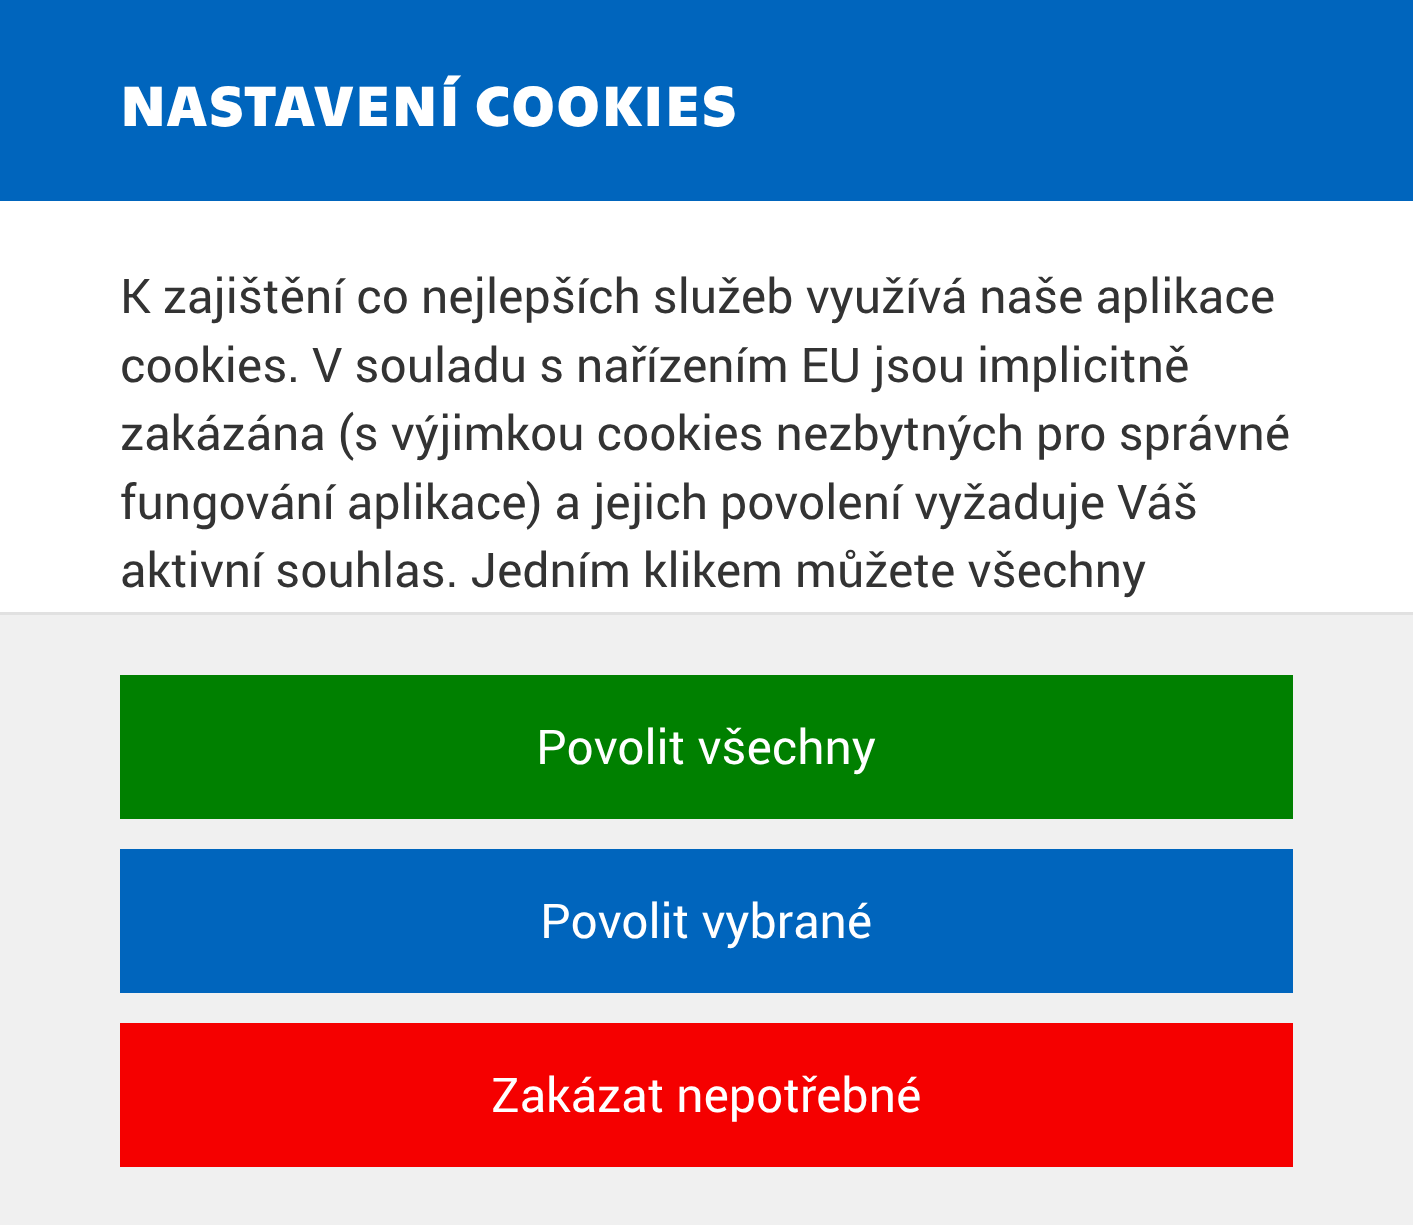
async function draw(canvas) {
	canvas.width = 1413;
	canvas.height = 1225;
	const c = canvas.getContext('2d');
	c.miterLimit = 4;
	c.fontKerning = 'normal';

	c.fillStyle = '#fff';
	c.fillRect(0, 0, 1413, 1225);
	c.fillStyle = '#0065bd';
	c.fillRect(0, 0, 1413, 201);
	c.letterSpacing = '1.4px';
	c.font = 'bold 57.6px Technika';
	c.fillStyle = '#fff';
	c.fillText('NASTAVENÍ COOKIES', 120, 126);
	c.letterSpacing = '0px';
	c.font = '48px Roboto';
	c.fillStyle = '#333';
	for (const [text, x, y] of [
		['K zajištění co nejlepších služeb využívá naše aplikace', 120, 313],
		['cookies. V souladu s nařízením EU jsou implicitně', 120, 382],
		['zakázána (s výjimkou cookies nezbytných pro správné', 120, 450],
		['fungování aplikace) a jejich povolení vyžaduje Váš', 120, 519],
		['aktivní souhlas. Jedním klikem můžete všechny', 120, 587],
	]) {
		c.fillText(text, x, y);
	}
	for (const [x, y, w, h, color] of [
		[0, 615, 1413, 610, '#f0f0f0'],
		[0, 612, 1413, 3, '#e1e1e1'],
		[120, 675, 1173, 144, '#008000'],
	]) {
		c.fillStyle = color;
		c.fillRect(x, y, w, h);
	}
	c.fillStyle = '#fff';
	c.fillText('Povolit všechny', 536, 764);
	c.fillStyle = '#0065bd';
	c.fillRect(120, 849, 1173, 144);
	c.fillStyle = '#fff';
	c.fillText('Povolit vybrané', 540, 938);
	c.fillStyle = '#f50000';
	c.fillRect(120, 1023, 1173, 144);
	c.fillStyle = '#fff';
	c.fillText('Zakázat nepotřebné', 491, 1112);
}

draw(document.querySelector('canvas'));
